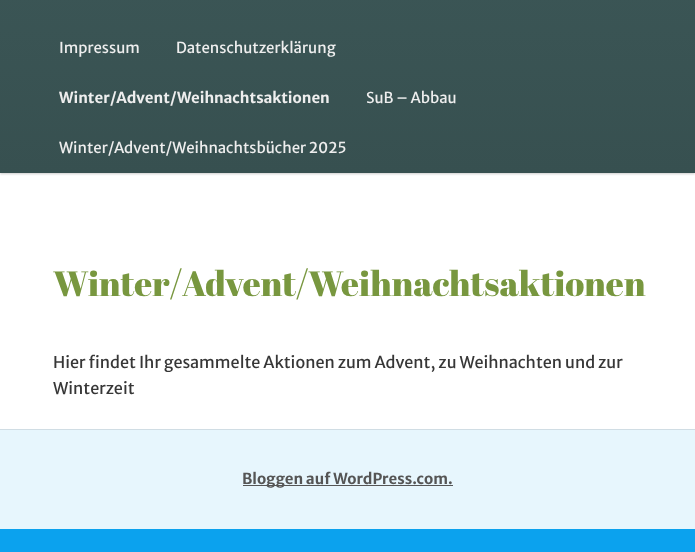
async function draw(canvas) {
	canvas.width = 695;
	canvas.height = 552;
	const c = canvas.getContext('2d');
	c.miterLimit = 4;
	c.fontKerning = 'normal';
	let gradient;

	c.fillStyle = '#0ba2ee';
	c.fillRect(0, 0, 695, 552);
	c.fillStyle = '#fff';
	c.fillRect(0, 173, 695, 256);
	c.fillStyle = '#00000033';
	c.filter = 'blur(1px)';
	c.beginPath();
	c.rect(0, -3, 695, 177);
	c.fill();
	c.filter = 'none';
	gradient = c.createLinearGradient(348, -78, 348, 173);
	gradient.addColorStop(0, '#3c5757');
	gradient.addColorStop(1, '#375050');
	c.fillStyle = gradient;
	c.fillRect(0, 0, 695, 173);
	c.font = '15px Merriweather Sans';
	c.fillStyle = '#eee';
	c.fillText('Impressum', 59, 53);
	c.fillText('Datenschutzerklärung', 176, 53);
	c.font = 'bold 15px Merriweather Sans';
	c.fillText('Winter/Advent/Weihnachtsaktionen', 59, 103);
	c.font = '15px Merriweather Sans';
	c.fillText('SuB – Abbau', 366, 103);
	c.fillText('Winter/Advent/Weihnachtsbücher 2025', 59, 153);
	c.font = '35px Abril Fatface';
	c.fillStyle = '#78973f';
	c.fillText('Winter/Advent/Weihnachtsaktionen', 53, 296);
	c.font = '16.25px Merriweather Sans';
	c.fillStyle = '#373737';
	c.fillText('Hier findet Ihr gesammelte Aktionen zum Advent, zu Weihnachten und zur', 53, 368);
	c.fillText('Winterzeit', 53, 394);
	for (const [x, y, w, h, color] of [
		[0, 430, 695, 99, '#e7f6fd'],
		[0, 429, 695, 1, '#d0dde4'],
		[243, 485, 210, 1, '#555'],
	]) {
		c.fillStyle = color;
		c.fillRect(x, y, w, h);
	}
	c.font = 'bold 15px Merriweather Sans';
	c.fillText('Bloggen auf WordPress.com.', 242, 484);
}

draw(document.querySelector('canvas'));
